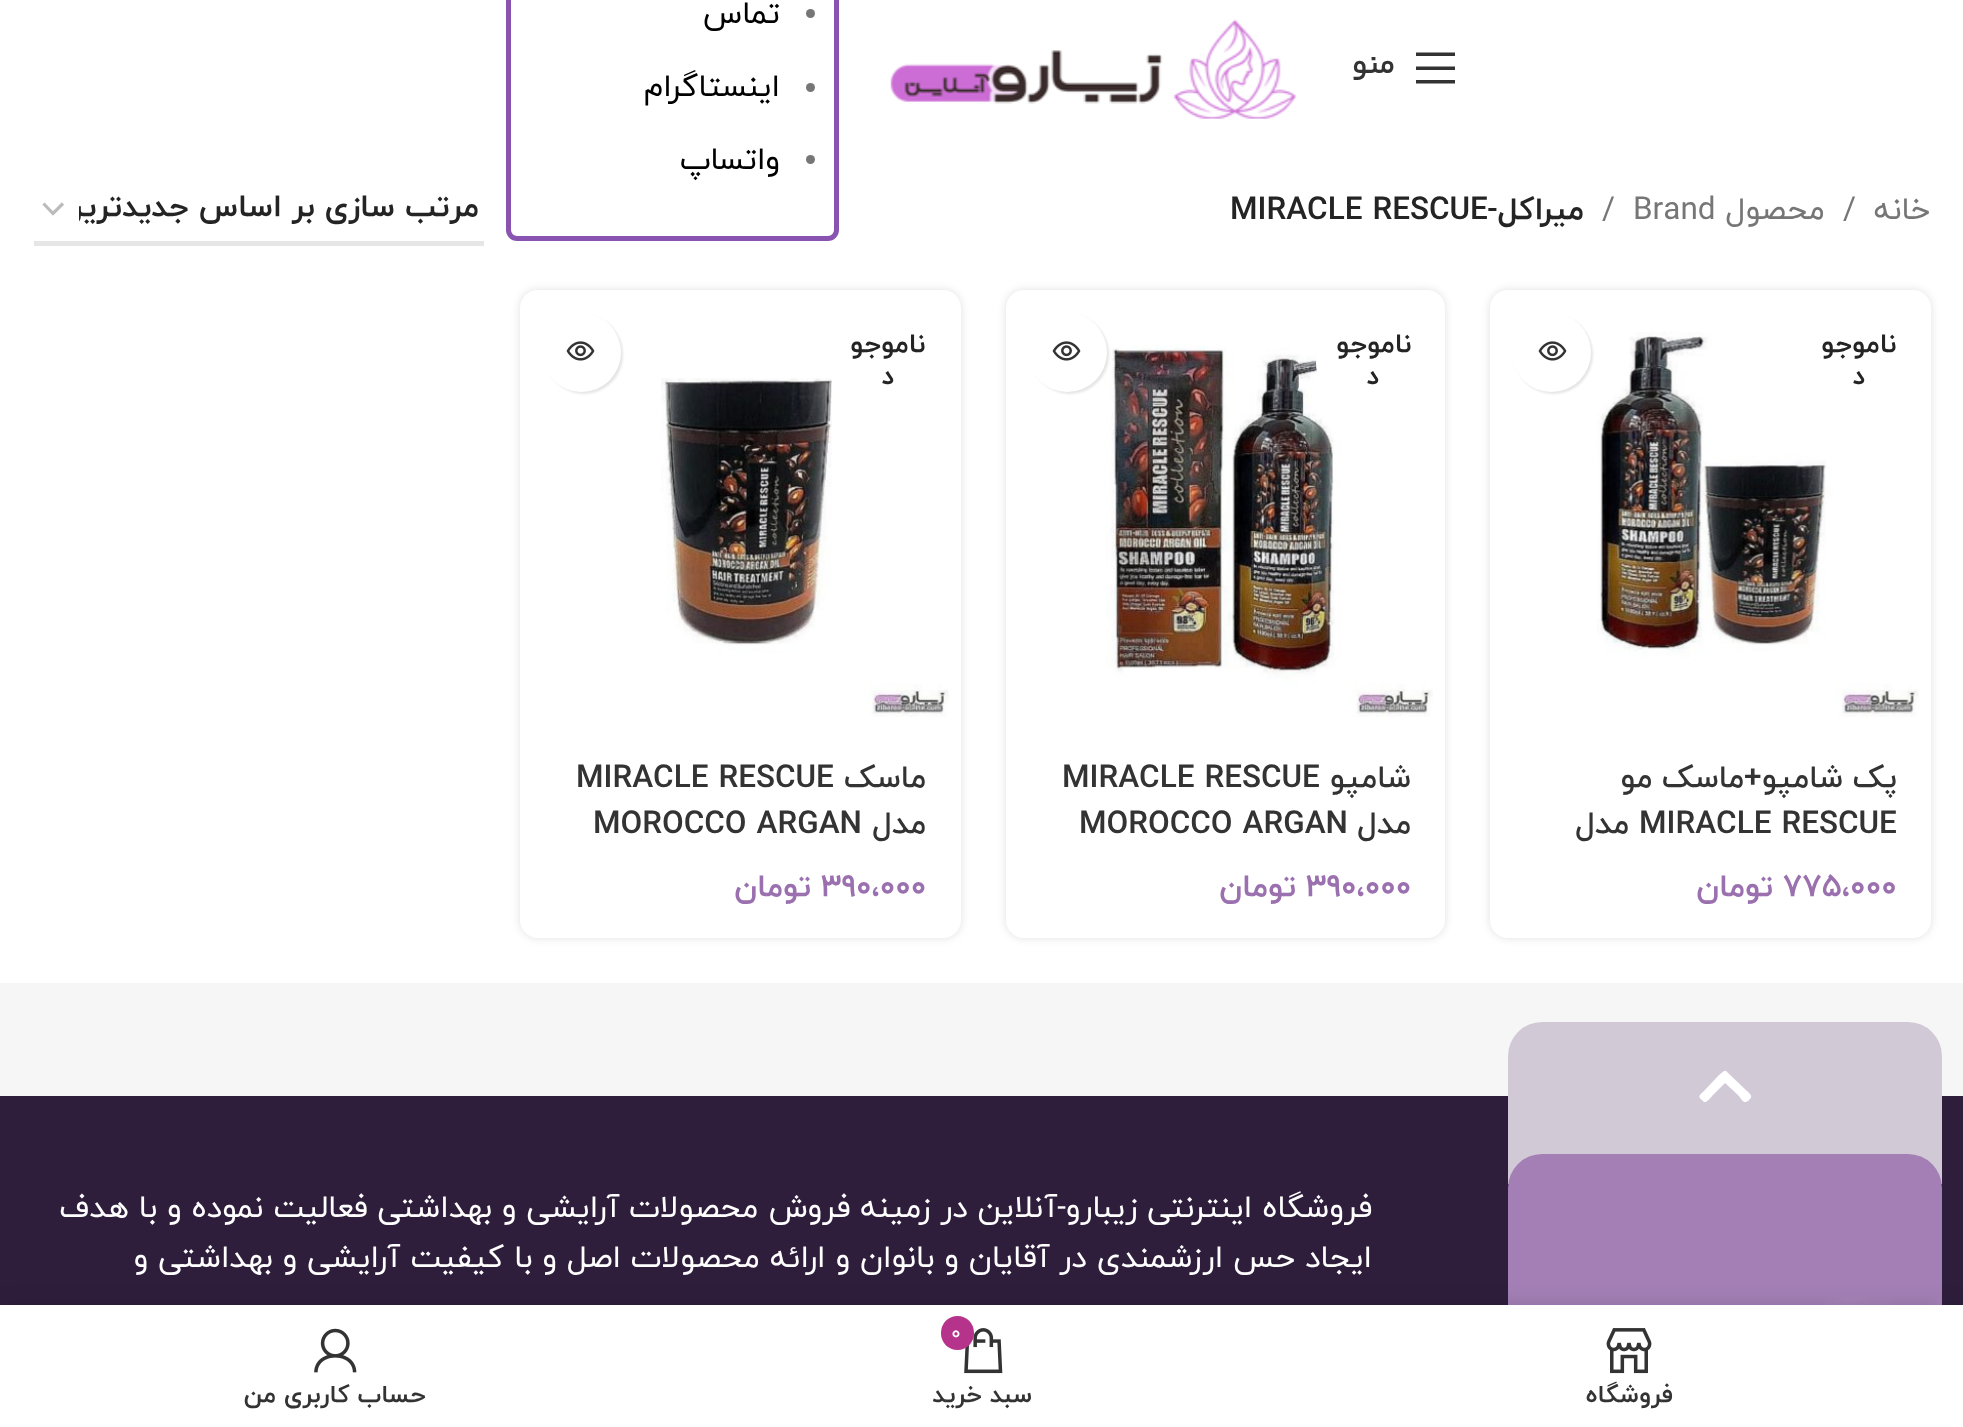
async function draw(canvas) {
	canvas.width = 1963;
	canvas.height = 1427;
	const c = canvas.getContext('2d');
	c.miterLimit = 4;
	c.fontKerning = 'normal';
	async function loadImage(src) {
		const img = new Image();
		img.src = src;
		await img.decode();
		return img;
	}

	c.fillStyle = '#fff';
	c.fillRect(0, 0, 1963, 1427);
	c.fillStyle = '#333';
	c.beginPath();
	c.moveTo(1416, 56);
	c.lineTo(1455, 56);
	c.lineTo(1455, 52.5);
	c.lineTo(1416, 52.5);
	c.closePath();
	c.moveTo(1416, 70);
	c.lineTo(1455, 70);
	c.lineTo(1455, 66.5);
	c.lineTo(1416, 66.5);
	c.closePath();
	c.moveTo(1416, 83.5);
	c.lineTo(1455, 83.5);
	c.lineTo(1455, 80);
	c.lineTo(1416, 80);
	c.closePath();
	c.fill();
	c.direction = 'rtl';
	c.font = 'bold 29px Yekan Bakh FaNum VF';
	c.fillText('منو', 1395, 73);
	c.drawImage(await loadImage('img1.png'), 890, 19, 407, 100);
	c.beginPath();
	c.roundRect(508.5, -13.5, 328, 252, 8.5);
	c.strokeStyle = '#8953b1';
	c.lineWidth = 5;
	c.stroke();
	c.fillStyle = '#767676';
	c.beginPath();
	c.arc(810.5, 13.5, 4.5, 0, 2 * Math.PI);
	c.fill();
	c.font = '31.5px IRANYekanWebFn';
	c.fillStyle = '#000';
	c.fillText('تماس', 780, 23);
	c.fillStyle = '#767676';
	c.beginPath();
	c.arc(810.5, 87.5, 4.5, 0, 2 * Math.PI);
	c.fill();
	c.fillStyle = '#000';
	c.fillText('اینستاگرام', 780, 96);
	c.fillStyle = '#767676';
	c.beginPath();
	c.arc(810.5, 159.5, 4.5, 0, 2 * Math.PI);
	c.fill();
	c.fillStyle = '#000';
	c.fillText('واتساپ', 780, 169);
	c.fillStyle = '#767676';
	c.fillText('خانه', 1930, 219);
	c.direction = 'ltr';
	c.fillText('/', 1843, 219);
	c.direction = 'rtl';
	c.fillText('محصول', 1825, 219);
	c.direction = 'ltr';
	c.fillText('Brand', 1633, 219);
	c.fillText('/', 1602, 219);
	c.direction = 'rtl';
	c.font = 'bold 31.5px IRANYekanWebFn';
	c.fillStyle = '#242424';
	c.fillText('میراکل-', 1584, 219);
	c.direction = 'ltr';
	c.fillText('MIRACLE RESCUE', 1230, 219);
	c.beginPath();
	c.moveTo(43.5, 203.5);
	c.lineTo(53, 213.5);
	c.lineTo(63, 203.5);
	c.strokeStyle = '#bbb';
	c.lineWidth = 3.2;
	c.stroke();
	c.fillStyle = '#e6e6e6';
	c.fillRect(34, 241, 450, 5);
	c.save();
	c.beginPath();
	c.rect(79, 191, 400, 39);
	c.clip();
	c.direction = 'rtl';
	c.fillStyle = '#242424';
	c.fillText('مرتب سازی بر اساس جدیدترین', 479, 216);
	c.restore();
	c.fillStyle = '#0000001f';
	c.filter = 'blur(4.5px)';
	c.beginPath();
	c.roundRect(1490, 290, 441, 648, 18);
	c.fill();
	c.filter = 'none';
	c.fillStyle = '#fff';
	c.beginPath();
	c.roundRect(1490, 290, 441, 648, 18);
	c.fill();
	c.drawImage(await loadImage('img2.png'), 1597, 332, 322, 385);
	c.direction = 'rtl';
	c.font = 'bold 27px IRANYekanWebFn';
	c.fillStyle = '#242424';
	c.fillText('ناموجو', 1896, 352);
	c.fillText('د', 1865, 384);
	c.fillStyle = '#0000001a';
	c.filter = 'blur(1px)';
	c.beginPath();
	c.roundRect(1514, 315, 79, 79, 39.5);
	c.fill();
	c.filter = 'none';
	c.fillStyle = '#fff';
	c.beginPath();
	c.arc(1551.5, 352.5, 39.5, 0, 2 * Math.PI);
	c.fill();
	c.drawImage(await loadImage('img3.png'), 1538, 341, 29, 20);
	c.font = '500 31.5px IRANYekanWebFn';
	c.fillStyle = '#333';
	c.fillText('پک شامپو+ماسک مو', 1897, 787);
	c.direction = 'ltr';
	c.fillText('MIRACLE RESCUE', 1639, 833);
	c.direction = 'rtl';
	c.fillText('مدل', 1629, 833);
	c.direction = 'ltr';
	c.font = 'bold 31.5px IRANYekanWebFn';
	c.fillStyle = '#9b70af';
	c.fillText('775،000', 1783, 896);
	c.direction = 'rtl';
	c.fillText('تومان', 1773, 896);
	c.fillStyle = '#0000001f';
	c.filter = 'blur(4.5px)';
	c.beginPath();
	c.roundRect(1006, 290, 439, 648, 18);
	c.fill();
	c.filter = 'none';
	c.fillStyle = '#fff';
	c.beginPath();
	c.roundRect(1006, 290, 439, 648, 18);
	c.fill();
	c.drawImage(await loadImage('img4.png'), 1106, 345, 327, 372);
	c.beginPath();
	c.arc(1372.5, 362.5, 56.5, 0, 2 * Math.PI);
	c.fill();
	c.font = 'bold 27px IRANYekanWebFn';
	c.fillStyle = '#242424';
	c.fillText('ناموجو', 1411, 352);
	c.fillText('د', 1379, 384);
	c.fillStyle = '#0000001a';
	c.filter = 'blur(1px)';
	c.beginPath();
	c.roundRect(1031, 315, 78, 79, 39);
	c.fill();
	c.filter = 'none';
	c.fillStyle = '#fff';
	c.beginPath();
	c.arc(1067.5, 352.5, 39.5, 0, 2 * Math.PI);
	c.fill();
	c.drawImage(await loadImage('img3.png'), 1052, 341, 29, 20);
	c.font = '500 31.5px IRANYekanWebFn';
	c.fillStyle = '#333';
	c.fillText('شامپو', 1411, 787);
	c.direction = 'ltr';
	c.fillText('MIRACLE RESCUE', 1062, 787);
	c.direction = 'rtl';
	c.fillText('مدل', 1411, 833);
	c.direction = 'ltr';
	c.fillText('MOROCCO ARGAN', 1079, 833);
	c.font = 'bold 31.5px IRANYekanWebFn';
	c.fillStyle = '#9b70af';
	c.fillText('390،000', 1306, 896);
	c.direction = 'rtl';
	c.fillText('تومان', 1296, 896);
	c.fillStyle = '#0000001f';
	c.filter = 'blur(4.5px)';
	c.beginPath();
	c.roundRect(520, 290, 441, 648, 18);
	c.fill();
	c.filter = 'none';
	c.fillStyle = '#fff';
	c.beginPath();
	c.roundRect(520, 290, 441, 648, 18);
	c.fill();
	c.font = 'bold 27px IRANYekanWebFn';
	c.fillStyle = '#242424';
	c.fillText('ناموجو', 925, 352);
	c.drawImage(await loadImage('img5.png'), 661, 378, 288, 339);
	c.fillText('د', 894, 384);
	c.fillStyle = '#0000001a';
	c.filter = 'blur(1px)';
	c.beginPath();
	c.roundRect(545, 315, 78, 79, 39);
	c.fill();
	c.filter = 'none';
	c.fillStyle = '#fff';
	c.beginPath();
	c.arc(581.5, 352.5, 39.5, 0, 2 * Math.PI);
	c.fill();
	c.drawImage(await loadImage('img3.png'), 566, 341, 29, 20);
	c.font = '500 31.5px IRANYekanWebFn';
	c.fillStyle = '#333';
	c.fillText('ماسک', 926, 787);
	c.direction = 'ltr';
	c.fillText('MIRACLE RESCUE', 576, 787);
	c.direction = 'rtl';
	c.fillText('مدل', 926, 833);
	c.direction = 'ltr';
	c.fillText('MOROCCO ARGAN', 593, 833);
	c.font = 'bold 31.5px IRANYekanWebFn';
	c.fillStyle = '#9b70af';
	c.fillText('390،000', 821, 896);
	c.direction = 'rtl';
	c.fillText('تومان', 811, 896);
	c.fillStyle = '#f6f6f6';
	c.fillRect(0, 983, 1963, 113);
	c.fillStyle = '#2e1e3c';
	c.fillRect(0, 1096, 1963, 209);
	c.fillStyle = '#d2c9d7';
	c.beginPath();
	c.roundRect(1508, 1022, 434, 162, [34, 34, 0, 0]);
	c.fill();
	c.fillStyle = '#fff';
	c.beginPath();
	c.moveTo(1727, 1072);
	c.lineTo(1747, 1091);
	c.bezierCurveTo(1751, 1095, 1753, 1096, 1749, 1100);
	c.bezierCurveTo(1744, 1105, 1742, 1100, 1738, 1095);
	c.lineTo(1725, 1083);
	c.lineTo(1713, 1095);
	c.bezierCurveTo(1711, 1097, 1707, 1103, 1704, 1102);
	c.lineTo(1702, 1100);
	c.bezierCurveTo(1697, 1096, 1700, 1095, 1704, 1091);
	c.lineTo(1719, 1075);
	c.bezierCurveTo(1721, 1074, 1725, 1068, 1727, 1072);
	c.closePath();
	c.fill();
	c.fillStyle = '#a37fb5';
	c.beginPath();
	c.roundRect(1508, 1154, 434, 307, 34);
	c.fill();
	c.drawImage(await loadImage('img6.png'), 1825, 1296, 117, 9);
	c.font = '31.5px IRANYekanWebFn';
	c.fillStyle = '#fff';
	c.fillText('فروشگاه اینترنتی زیبارو-آنلاین در زمینه فروش محصولات آرایشی و بهداشتی فعالیت نموده و با هدف', 1372, 1217);
	c.fillText('ایجاد حس ارزشمندی در آقایان و بانوان و ارائه محصولات اصل و با کیفیت آرایشی و بهداشتی و', 1372, 1267);
	c.fillStyle = '#0000001f';
	c.filter = 'blur(10px)';
	c.beginPath();
	c.rect(0, 1305, 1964, 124);
	c.fill();
	c.filter = 'none';
	c.fillStyle = '#fff';
	c.fillRect(0, 1305, 1963, 122);
	c.drawImage(await loadImage('img7.png'), 1606, 1328, 46, 46);
	c.font = 'bold 24.75px IRANYekanWebFn';
	c.fillStyle = '#333';
	c.fillText('فروشگاه', 1673, 1402);
	c.drawImage(await loadImage('img8.png'), 964, 1328, 39, 46);
	c.fillStyle = '#b5338a';
	c.beginPath();
	c.roundRect(941, 1316, 33, 34, 16.5);
	c.fill();
	c.direction = 'ltr';
	c.font = '20px IRANYekanWebFn';
	c.fillStyle = '#fff';
	c.fillText('0', 951, 1339);
	c.direction = 'rtl';
	c.font = 'bold 24.75px IRANYekanWebFn';
	c.fillStyle = '#333';
	c.fillText('سبد خرید', 1032, 1402);
	c.drawImage(await loadImage('img9.png'), 314, 1328, 43, 45);
	c.fillText('حساب کاربری من', 426, 1402);
}

draw(document.querySelector('canvas'));
